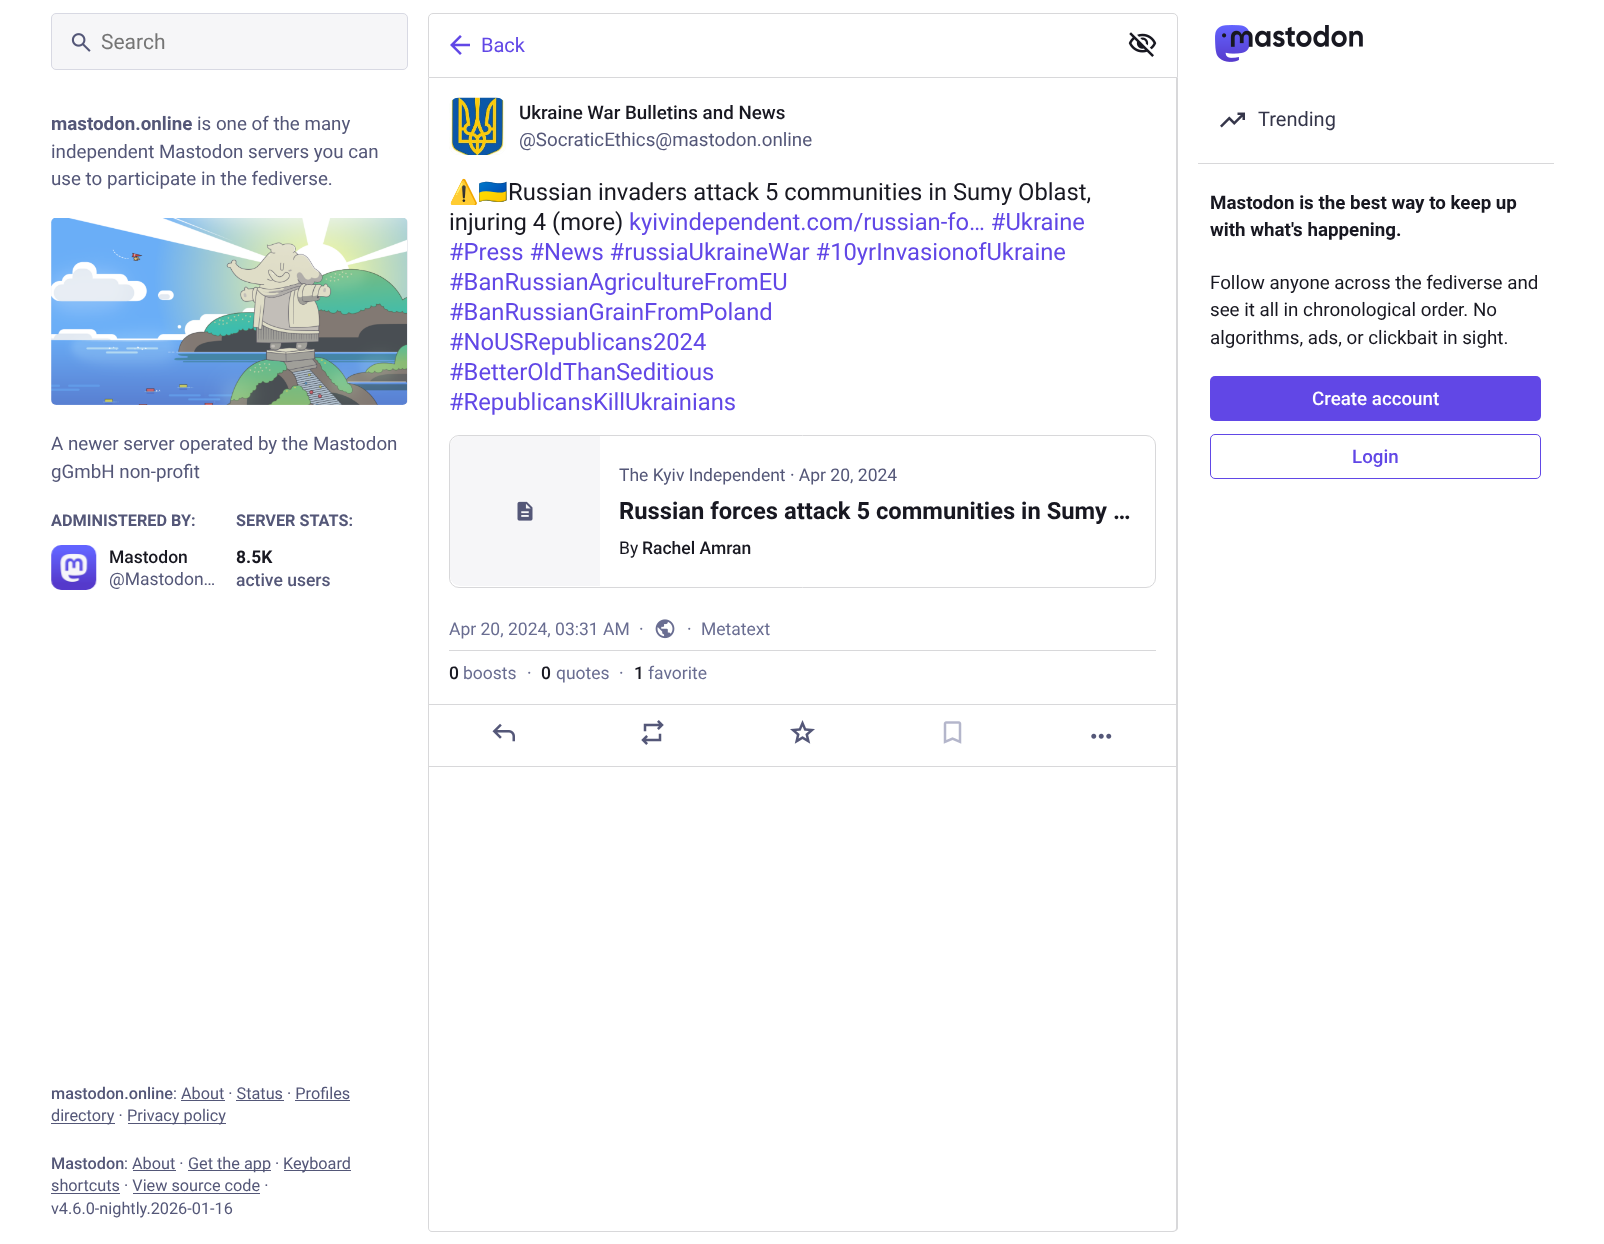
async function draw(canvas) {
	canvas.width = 1604;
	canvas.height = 1244;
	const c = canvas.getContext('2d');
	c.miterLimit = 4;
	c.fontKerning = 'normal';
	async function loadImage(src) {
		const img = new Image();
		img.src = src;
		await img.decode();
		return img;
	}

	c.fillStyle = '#fff';
	c.fillRect(0, 0, 1604, 1244);
	c.fillStyle = '#f6f6f8';
	c.beginPath();
	c.roundRect(51.5, 13.5, 356, 56, 4.5);
	c.fill();
	c.strokeStyle = '#d8d9e3';
	c.stroke();
	c.drawImage(await loadImage('img1.png'), 71, 33, 20, 19);
	c.font = '21px Roboto';
	c.fillStyle = '#757575';
	c.fillText('Search', 101, 49);
	c.font = 'bold 18.75px Roboto';
	c.fillStyle = '#545778';
	c.fillText('mastodon.online', 51, 130);
	c.font = '18.75px Roboto';
	for (const [text, x, y] of [
		['is one of the many', 197, 130],
		['independent Mastodon servers you can', 51, 158],
		['use to participate in the fediverse.', 51, 185],
	]) {
		c.fillText(text, x, y);
	}
	c.fillStyle = '#ecedf1';
	c.beginPath();
	c.roundRect(51, 218, 357, 187, 5);
	c.fill();
	c.drawImage(await loadImage('img2.png'), 51, 218, 356, 187);
	c.fillStyle = '#545778';
	c.fillText('A newer server operated by the Mastodon', 51, 450);
	c.fillText('gGmbH non-profit', 51, 478);
	c.font = 'bold 16.25px Roboto';
	c.fillText('ADMINISTERED BY:', 51, 526);
	c.fillStyle = '#ecedf1';
	c.beginPath();
	c.roundRect(51, 545, 45, 45, 10);
	c.fill();
	c.drawImage(await loadImage('img3.png'), 51, 545, 46, 45);
	c.font = '500 17.5px Roboto';
	c.fillStyle = '#181821';
	c.fillText('Mastodon', 109, 563);
	c.font = '17.5px Roboto';
	c.fillStyle = '#545778';
	c.fillText('@Mastodon…', 109, 585);
	c.font = 'bold 16.25px Roboto';
	c.fillText('SERVER STATS:', 236, 526);
	c.font = 'bold 17.5px Roboto';
	c.fillStyle = '#181821';
	c.fillText('8.5K', 236, 563);
	c.font = '500 17.5px Roboto';
	c.fillStyle = '#545778';
	c.fillText('active users', 236, 586);
	c.font = '500 16.25px Roboto';
	c.fillText('mastodon.online', 51, 1099);
	c.font = '16.25px Roboto';
	c.fillText(': About · Status · Profiles', 173, 1099);
	for (const [x, y, w, h, color] of [
		[181, 1100, 44, 1, '#545778'],
		[236, 1100, 48, 1, '#545778'],
		[51, 1123, 64, 1, '#545778'],
	]) {
		c.fillStyle = color;
		c.fillRect(x, y, w, h);
	}
	c.fillText('directory ·', 51, 1121);
	c.fillRect(295, 1100, 55, 1);
	c.fillRect(128, 1123, 98, 1);
	c.fillText('Privacy policy', 127, 1121);
	c.font = '500 16.25px Roboto';
	c.fillText('Mastodon', 51, 1169);
	c.font = '16.25px Roboto';
	c.fillText(': About ·', 124, 1169);
	c.fillRect(188, 1170, 83, 1);
	c.fillText('Get the app ·', 188, 1169);
	c.fillRect(284, 1170, 67, 1);
	c.fillText('Keyboard', 283, 1169);
	c.fillRect(133, 1170, 43, 1);
	c.fillText('shortcuts · View source code ·', 51, 1191);
	c.fillRect(51, 1193, 69, 1);
	c.fillRect(133, 1193, 127, 1);
	c.fillText('v4.6.0-nightly.2026-01-16', 51, 1214);
	c.beginPath();
	c.roundRect(428.5, 13.5, 749, 64, [4.5, 4.5, 0, 0]);
	c.strokeStyle = '#d8d8da';
	c.stroke();
	c.drawImage(await loadImage('img4.png'), 450, 35, 20, 20);
	c.font = '20px Roboto';
	c.fillStyle = '#6147e6';
	c.fillText('Back', 481, 52);
	c.drawImage(await loadImage('img5.png'), 1128, 32, 29, 25);
	c.fillStyle = '#d8d8da';
	c.beginPath();
	c.moveTo(428, 78);
	c.lineTo(1178, 78);
	c.lineTo(1178, 1228);
	c.bezierCurveTo(1178, 1230, 1175, 1232, 1172, 1232);
	c.lineTo(432, 1232);
	c.bezierCurveTo(430, 1232, 428, 1230, 428, 1228);
	c.closePath();
	c.moveTo(429, 78);
	c.lineTo(1176, 78);
	c.lineTo(1176, 1228);
	c.bezierCurveTo(1176, 1230, 1175, 1231, 1172, 1231);
	c.lineTo(432, 1231);
	c.bezierCurveTo(430, 1231, 429, 1230, 429, 1228);
	c.closePath();
	c.fill('evenodd');
	c.fillStyle = '#ecedf1';
	c.beginPath();
	c.roundRect(449, 98, 57, 57, 10);
	c.fill();
	c.drawImage(await loadImage('img6.png'), 449, 97, 57, 58);
	c.font = '500 18.75px Roboto';
	c.fillStyle = '#181821';
	c.fillText('Ukraine War Bulletins and News', 519, 119);
	c.font = '18.75px Roboto';
	c.fillStyle = '#545778';
	c.fillText('@SocraticEthics@mastodon.online', 519, 146);
	c.save();
	c.beginPath();
	c.rect(449, 175, 707, 243);
	c.clip();
	c.font = '23.75px Noto Color Emoji';
	c.fillStyle = '#181821';
	c.fillText('⚠️', 449, 200);
	c.restore();
	c.font = '23.75px Noto Color Emoji';
	c.fillStyle = '#181821';
	c.fillText('🇺🇦', 478, 200);
	c.font = '23.75px Roboto';
	c.fillText('Russian invaders attack 5 communities in Sumy Oblast,', 508, 200);
	c.fillText('injuring 4 (more)', 449, 230);
	c.fillStyle = '#6147e6';
	for (const [text, x, y] of [
		['kyivindependent.com/russian-fo… #Ukraine', 629, 230],
		['#Press #News #russiaUkraineWar #10yrInvasionofUkraine', 449, 260],
		['#BanRussianAgricultureFromEU', 449, 290],
		['#BanRussianGrainFromPoland', 449, 320],
		['#NoUSRepublicans2024', 449, 350],
		['#BetterOldThanSeditious', 449, 380],
		['#RepublicansKillUkrainians', 449, 410],
	]) {
		c.fillText(text, x, y);
	}
	c.beginPath();
	c.roundRect(449.5, 435.5, 706, 152, 9.5);
	c.stroke();
	c.save();
	c.beginPath();
	c.roundRect(450, 436, 705, 150, 9);
	c.clip();
	c.fillStyle = '#f6f6f8';
	c.beginPath();
	c.roundRect(450, 436, 150, 150, [10, 0, 0, 10]);
	c.fill();
	c.restore();
	c.drawImage(await loadImage('img7.png'), 517, 501, 16, 20);
	c.font = '17.5px Roboto';
	c.fillStyle = '#545778';
	c.fillText('The Kyiv Independent · Apr 20, 2024', 619, 481);
	c.font = 'bold 23.75px Roboto';
	c.fillStyle = '#181821';
	c.fillText('Russian forces attack 5 communities in Sumy …', 619, 519);
	c.font = '17.5px Roboto';
	c.fillText('By', 619, 554);
	c.font = '500 17.5px Roboto';
	c.fillText('Rachel Amran', 642, 554);
	c.fillStyle = '#d8d8da';
	c.fillRect(449, 650, 707, 1);
	c.font = '17.5px Roboto';
	c.fillStyle = '#696d91';
	c.fillText('Apr 20, 2024, 03:31 AM', 449, 635);
	c.fillText('·', 639, 635);
	c.drawImage(await loadImage('img8.png'), 655, 619, 20, 20);
	c.fillText('·', 687, 635);
	c.fillText('Metatext', 701, 635);
	c.font = '500 17.5px Roboto';
	c.fillStyle = '#181821';
	c.fillText('0', 449, 679);
	c.font = '17.5px Roboto';
	c.fillStyle = '#696d91';
	c.fillText('boosts', 463, 679);
	c.fillText('·', 527, 679);
	c.font = '500 17.5px Roboto';
	c.fillStyle = '#181821';
	c.fillText('0', 541, 679);
	c.font = '17.5px Roboto';
	c.fillStyle = '#696d91';
	c.fillText('quotes', 556, 679);
	c.fillText('·', 619, 679);
	c.font = '500 17.5px Roboto';
	c.fillStyle = '#181821';
	c.fillText('1', 634, 679);
	c.font = '17.5px Roboto';
	c.fillStyle = '#696d91';
	c.fillText('favorite', 648, 679);
	c.fillStyle = '#d8d8da';
	c.fillRect(429, 704, 747, 1);
	c.fillRect(429, 766, 747, 1);
	c.drawImage(await loadImage('img9.png'), 492, 723, 23, 19);
	c.drawImage(await loadImage('img10.png'), 641, 720, 23, 25);
	c.drawImage(await loadImage('img11.png'), 790, 720, 25, 24);
	c.drawImage(await loadImage('img12.png'), 943, 721, 19, 23);
	c.drawImage(await loadImage('img13.png'), 1091, 733, 21, 6);
	c.drawImage(await loadImage('img14.png'), 1215, 25, 148, 37);
	c.drawImage(await loadImage('img15.png'), 1220, 112, 25, 16);
	c.font = '20px Roboto';
	c.fillStyle = '#35364a';
	c.fillText('Trending', 1258, 126);
	c.fillStyle = '#d8d8da';
	c.fillRect(1198, 163, 356, 1);
	c.font = 'bold 18.75px Roboto';
	c.fillStyle = '#181821';
	c.fillText('Mastodon is the best way to keep up', 1210, 209);
	c.fillText('with what\'s happening.', 1210, 236);
	c.font = '18.75px Roboto';
	for (const [text, x, y] of [
		['Follow anyone across the fediverse and', 1210, 289],
		['see it all in chronological order. No', 1210, 316],
		['algorithms, ads, or clickbait in sight.', 1210, 344],
	]) {
		c.fillText(text, x, y);
	}
	c.fillStyle = '#6147e6';
	c.beginPath();
	c.roundRect(1210, 376, 331, 45, 5);
	c.fill();
	c.font = '500 18.75px Roboto';
	c.fillStyle = '#fff';
	c.fillText('Create account', 1312, 405);
	c.beginPath();
	c.roundRect(1210.5, 434.5, 330, 44, 4.5);
	c.strokeStyle = '#6147e6';
	c.stroke();
	c.fillStyle = '#6147e6';
	c.fillText('Login', 1352, 463);
}

draw(document.querySelector('canvas'));
